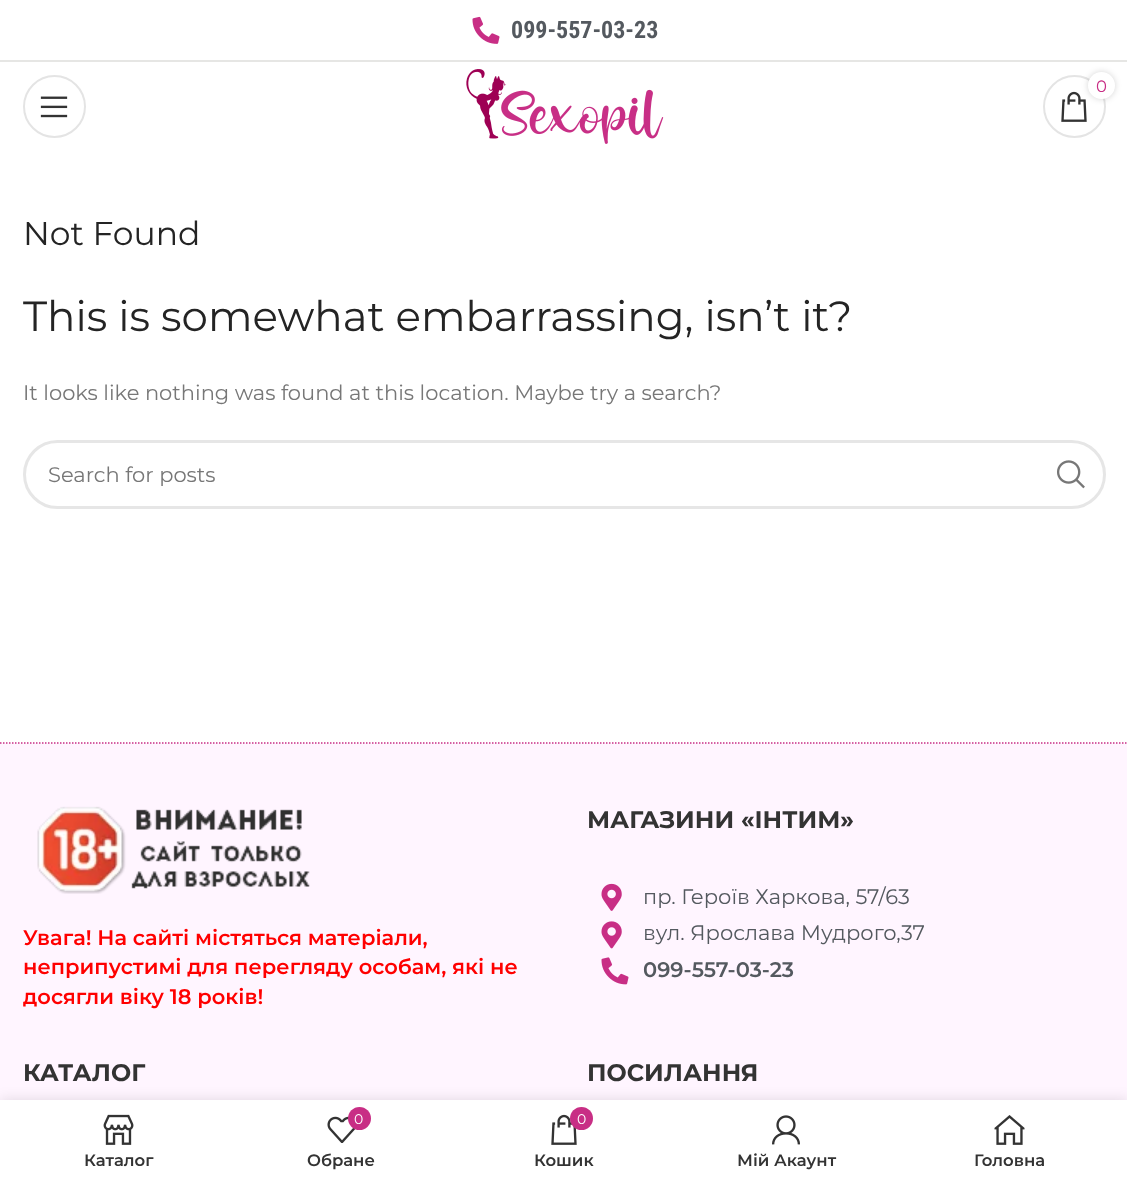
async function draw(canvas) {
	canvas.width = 1127;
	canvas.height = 1182;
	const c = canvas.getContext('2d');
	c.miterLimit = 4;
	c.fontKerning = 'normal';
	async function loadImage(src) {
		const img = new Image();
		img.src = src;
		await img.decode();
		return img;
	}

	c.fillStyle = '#fff';
	c.fillRect(0, 0, 1127, 1182);
	c.fillStyle = '#e6e6e4';
	c.fillRect(0, 60, 1127, 2);
	c.drawImage(await loadImage('img1.png'), 472, 16, 28, 28);
	c.font = 'bold 24px Roboto Condensed';
	c.fillStyle = '#54595f';
	c.fillText('099-557-03-23', 511, 38);
	c.beginPath();
	c.arc(54.5, 106.5, 30.5, 0, 2 * Math.PI);
	c.strokeStyle = '#e4e4e4';
	c.lineWidth = 2;
	c.stroke();
	c.drawImage(await loadImage('img2.png'), 40, 96, 28, 22);
	c.drawImage(await loadImage('img3.png'), 466, 69, 198, 75);
	c.beginPath();
	c.arc(1074.5, 106.5, 30.5, 0, 2 * Math.PI);
	c.stroke();
	c.drawImage(await loadImage('img4.png'), 1061, 91, 26, 31);
	c.fillStyle = '#0000002b';
	c.filter = 'blur(3px)';
	c.beginPath();
	c.roundRect(1088, 72, 27, 27, 13.5);
	c.fill();
	c.filter = 'none';
	c.fillStyle = '#fff';
	c.beginPath();
	c.arc(1101.5, 85.5, 13.5, 0, 2 * Math.PI);
	c.fill();
	c.font = '16.5px Montserrat';
	c.fillStyle = '#c82e85';
	c.fillText('0', 1096, 92);
	c.font = '33px Montserrat';
	c.fillStyle = '#242424';
	c.fillText('Not Found', 23, 245);
	c.font = '42px Montserrat';
	c.fillText('This is somewhat embarrassing, isn’t it?', 23, 331);
	c.font = '21px Montserrat';
	c.fillStyle = '#777';
	c.fillText('It looks like nothing was found at this location. Maybe try a search?', 23, 400);
	c.beginPath();
	c.roundRect(24.5, 441.5, 1080, 66, 33);
	c.strokeStyle = '#e6e6e6';
	c.lineWidth = 3;
	c.stroke();
	c.fillText('Search for posts', 48, 482);
	c.drawImage(await loadImage('img5.png'), 1057, 460, 28, 29);
	c.fillStyle = '#fff5ff';
	c.fillRect(0, 743, 1127, 357);
	c.beginPath();
	c.moveTo(0, 743);
	c.lineTo(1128, 743);
	c.strokeStyle = '#c82e85';
	c.lineWidth = 1.5;
	c.setLineDash([1.5, 1.5]);
	c.stroke();
	c.drawImage(await loadImage('img6.png'), 37, 806, 273, 88);
	c.font = '600 21px Montserrat';
	c.fillStyle = '#f00';
	for (const [text, x, y] of [
		['Увага! На сайті містяться матеріали,', 23, 945],
		['неприпустимі для перегляду особам, які не', 23, 974],
		['досягли віку 18 років!', 23, 1004],
	]) {
		c.fillText(text, x, y);
	}
	c.font = 'bold 24px Montserrat';
	c.fillStyle = '#333';
	c.fillText('МАГАЗИНИ «ІНТИМ»', 587, 828);
	c.drawImage(await loadImage('img7.png'), 601, 883, 21, 28);
	c.font = '21px Montserrat';
	c.fillStyle = '#54595f';
	c.fillText('пр. Героїв Харкова, 57/63', 643, 904);
	c.drawImage(await loadImage('img8.png'), 601, 921, 21, 28);
	c.fillText('вул. Ярослава Мудрого,37', 643, 940);
	c.drawImage(await loadImage('img9.png'), 601, 957, 28, 28);
	c.font = '600 21px Montserrat';
	c.fillText('099-557-03-23', 643, 977);
	c.font = 'bold 24px Montserrat';
	c.fillStyle = '#333';
	c.fillText('КАТАЛОГ', 23, 1081);
	c.fillText('ПОСИЛАННЯ', 587, 1081);
	c.fillStyle = '#0000001f';
	c.filter = 'blur(7px)';
	c.beginPath();
	c.rect(0, 1100, 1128, 82);
	c.fill();
	c.filter = 'none';
	c.fillStyle = '#fff';
	c.fillRect(0, 1100, 1127, 82);
	c.drawImage(await loadImage('img10.png'), 103, 1114, 31, 31);
	c.font = '600 16.5px Montserrat';
	c.fillStyle = '#333';
	c.fillText('Каталог', 84, 1166);
	c.drawImage(await loadImage('img11.png'), 327, 1116, 29, 27);
	c.fillStyle = '#c82e85';
	c.beginPath();
	c.arc(359.5, 1118.5, 11.5, 0, 2 * Math.PI);
	c.fill();
	c.font = '14px Montserrat';
	c.fillStyle = '#fff';
	c.fillText('0', 354, 1124);
	c.font = '600 16.5px Montserrat';
	c.fillStyle = '#333';
	c.fillText('Обране', 307, 1166);
	c.drawImage(await loadImage('img4.png'), 551, 1114, 26, 31);
	c.fillStyle = '#c82e85';
	c.beginPath();
	c.arc(581.5, 1118.5, 11.5, 0, 2 * Math.PI);
	c.fill();
	c.font = '14px Montserrat';
	c.fillStyle = '#fff';
	c.fillText('0', 577, 1124);
	c.font = '600 16.5px Montserrat';
	c.fillStyle = '#333';
	c.fillText('Кошик', 534, 1166);
	c.drawImage(await loadImage('img12.png'), 772, 1115, 28, 30);
	c.fillText('Мій Акаунт', 737, 1166);
	c.drawImage(await loadImage('img13.png'), 994, 1115, 31, 30);
	c.fillText('Головна', 974, 1166);
}

draw(document.querySelector('canvas'));
